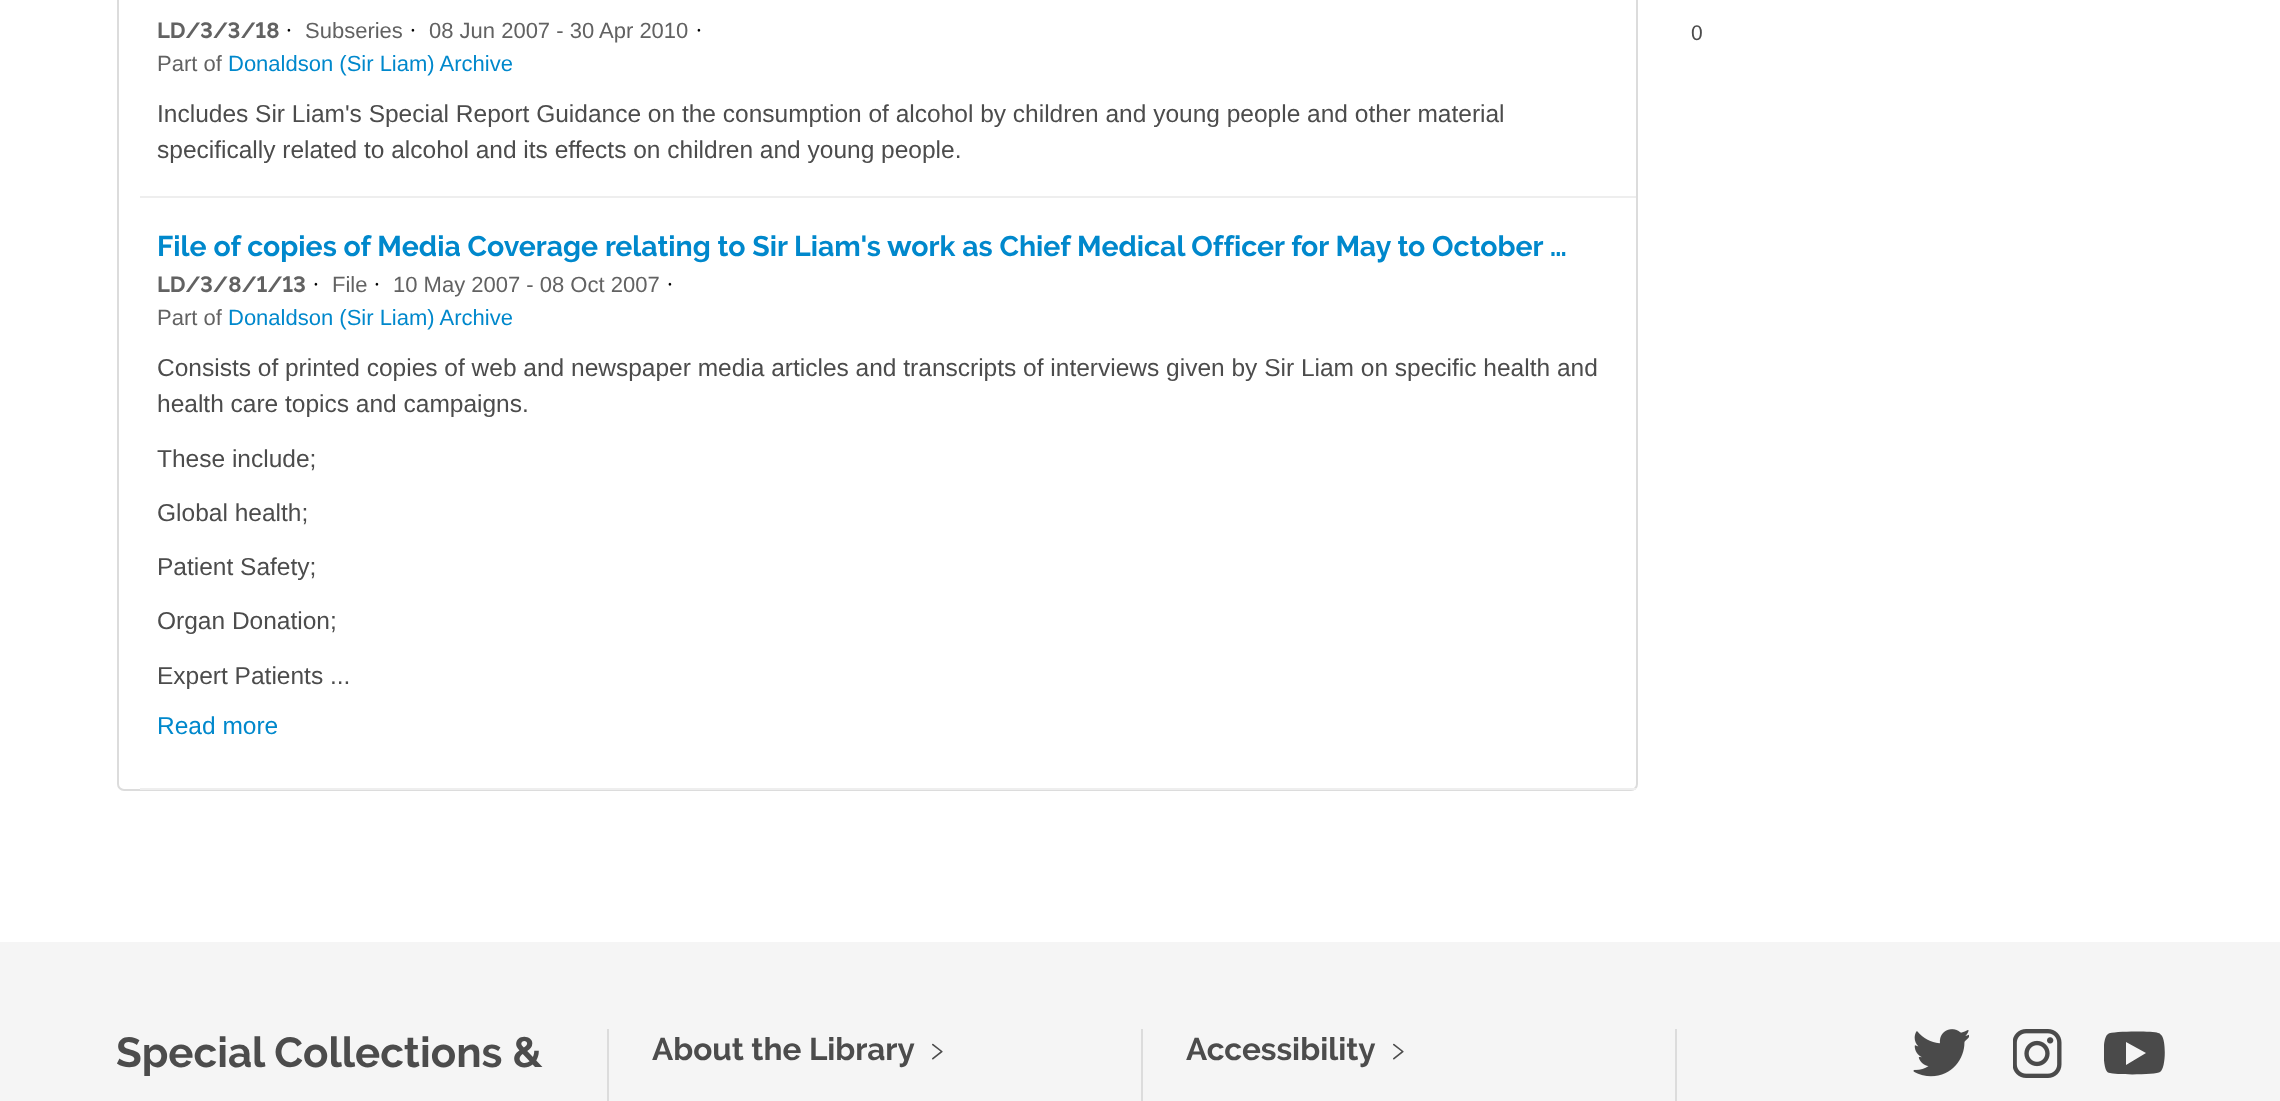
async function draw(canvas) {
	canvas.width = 2280;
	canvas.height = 1101;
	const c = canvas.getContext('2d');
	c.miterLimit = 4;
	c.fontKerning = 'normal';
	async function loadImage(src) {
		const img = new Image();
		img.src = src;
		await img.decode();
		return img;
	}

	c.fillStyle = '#fff';
	c.fillRect(0, 0, 2280, 1101);
	c.beginPath();
	c.roundRect(118, -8, 1519, 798, 6);
	c.strokeStyle = '#dcdcdc';
	c.lineWidth = 2;
	c.stroke();
	c.fillStyle = '#eee';
	c.fillRect(140, 196, 1496, 2);
	c.font = 'bold 22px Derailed';
	c.fillStyle = '#626262';
	c.fillText('LD/3/3/18', 157, 38);
	c.font = '22px Open Sans';
	c.fillStyle = '#000';
	c.fillText('·', 286, 38);
	c.font = '22px Liberation Sans';
	c.fillStyle = '#626262';
	c.fillText('Subseries', 305, 38);
	c.font = '22px Open Sans';
	c.fillStyle = '#000';
	c.fillText('·', 410, 38);
	c.font = '22px Liberation Sans';
	c.fillStyle = '#626262';
	c.fillText('08 Jun 2007 - 30 Apr 2010', 429, 38);
	c.font = '22px Open Sans';
	c.fillStyle = '#000';
	c.fillText('·', 696, 38);
	c.font = '22px Liberation Sans';
	c.fillStyle = '#626262';
	c.fillText('Part of', 157, 71);
	c.fillStyle = '#08c';
	c.fillText('Donaldson (Sir Liam) Archive', 228, 71);
	c.font = '24.5px Liberation Sans';
	c.fillStyle = '#4c4c4c';
	c.fillText('Includes Sir Liam\'s Special Report Guidance on the consumption of alcohol by children and young people and other material', 157, 122);
	c.fillText('specifically related to alcohol and its effects on children and young people.', 157, 158);
	c.fillStyle = '#eee';
	c.fillRect(140, 788, 1496, 2);
	c.font = 'bold 28.45px Derailed';
	c.fillStyle = '#08c';
	c.fillText('File of copies of Media Coverage relating to Sir Liam\'s work as Chief Medical Officer for May to October …', 157, 256);
	c.font = 'bold 22px Derailed';
	c.fillStyle = '#626262';
	c.fillText('LD/3/8/1/13', 157, 292);
	c.font = '22px Open Sans';
	c.fillStyle = '#000';
	c.fillText('·', 313, 292);
	c.font = '22px Liberation Sans';
	c.fillStyle = '#626262';
	c.fillText('File', 332, 292);
	c.font = '22px Open Sans';
	c.fillStyle = '#000';
	c.fillText('·', 374, 292);
	c.font = '22px Liberation Sans';
	c.fillStyle = '#626262';
	c.fillText('10 May 2007 - 08 Oct 2007', 393, 292);
	c.font = '22px Open Sans';
	c.fillStyle = '#000';
	c.fillText('·', 667, 292);
	c.font = '22px Liberation Sans';
	c.fillStyle = '#626262';
	c.fillText('Part of', 157, 325);
	c.fillStyle = '#08c';
	c.fillText('Donaldson (Sir Liam) Archive', 228, 325);
	c.font = '24.5px Liberation Sans';
	c.fillStyle = '#4c4c4c';
	for (const [text, x, y] of [
		['Consists of printed copies of web and newspaper media articles and transcripts of interviews given by Sir Liam on specific health and', 157, 376],
		['health care topics and campaigns.', 157, 412],
		['These include;', 157, 467],
		['Global health;', 157, 521],
		['Patient Safety;', 157, 575],
		['Organ Donation;', 157, 629],
		['Expert Patients ...', 157, 684],
	]) {
		c.fillText(text, x, y);
	}
	c.fillStyle = '#08c';
	c.fillText('Read more', 157, 734);
	c.font = '21px Liberation Sans';
	c.fillStyle = '#4c4c4c';
	c.fillText('0', 1691, 40);
	c.fillStyle = '#f5f5f5';
	c.fillRect(0, 942, 2280, 159);
	c.font = 'bold 42px Derailed';
	c.fillStyle = '#4c4c4c';
	c.fillText('Special Collections &', 116, 1067);
	c.fillStyle = '#dcdcdc';
	c.fillRect(607, 1029, 2, 72);
	c.font = 'bold 31.5px Derailed';
	c.fillStyle = '#4c4c4c';
	c.fillText('About the Library', 652, 1060);
	c.font = '31.5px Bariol';
	c.fillText('>', 932, 1059);
	c.fillStyle = '#dcdcdc';
	c.fillRect(1141, 1029, 2, 72);
	c.font = 'bold 31.5px Derailed';
	c.fillStyle = '#4c4c4c';
	c.fillText('Accessibility', 1186, 1060);
	c.font = '31.5px Bariol';
	c.fillText('>', 1393, 1059);
	c.fillStyle = '#dcdcdc';
	c.fillRect(1675, 1029, 2, 72);
	c.drawImage(await loadImage('img1.png'), 1913, 1029, 56, 48);
	c.drawImage(await loadImage('img2.png'), 2013, 1029, 49, 49);
	c.save();
	c.beginPath();
	c.rect(2104, 1029, 61, 49);
	c.clip();
	c.fillStyle = '#4a4a4a';
	c.beginPath();
	c.moveTo(2162, 1036);
	c.bezierCurveTo(2161, 1035, 2160, 1033, 2158, 1033);
	c.bezierCurveTo(2153, 1031, 2112, 1031, 2108, 1034);
	c.bezierCurveTo(2102, 1038, 2103, 1064, 2106, 1070);
	c.bezierCurveTo(2107, 1072, 2108, 1073, 2110, 1073);
	c.bezierCurveTo(2115, 1075, 2157, 1075, 2160, 1072);
	c.bezierCurveTo(2166, 1068, 2166, 1042, 2162, 1036);
	c.closePath();
	c.moveTo(2126, 1065);
	c.lineTo(2126, 1042);
	c.lineTo(2146, 1053);
	c.closePath();
	c.fill();
	c.restore();
}

draw(document.querySelector('canvas'));
